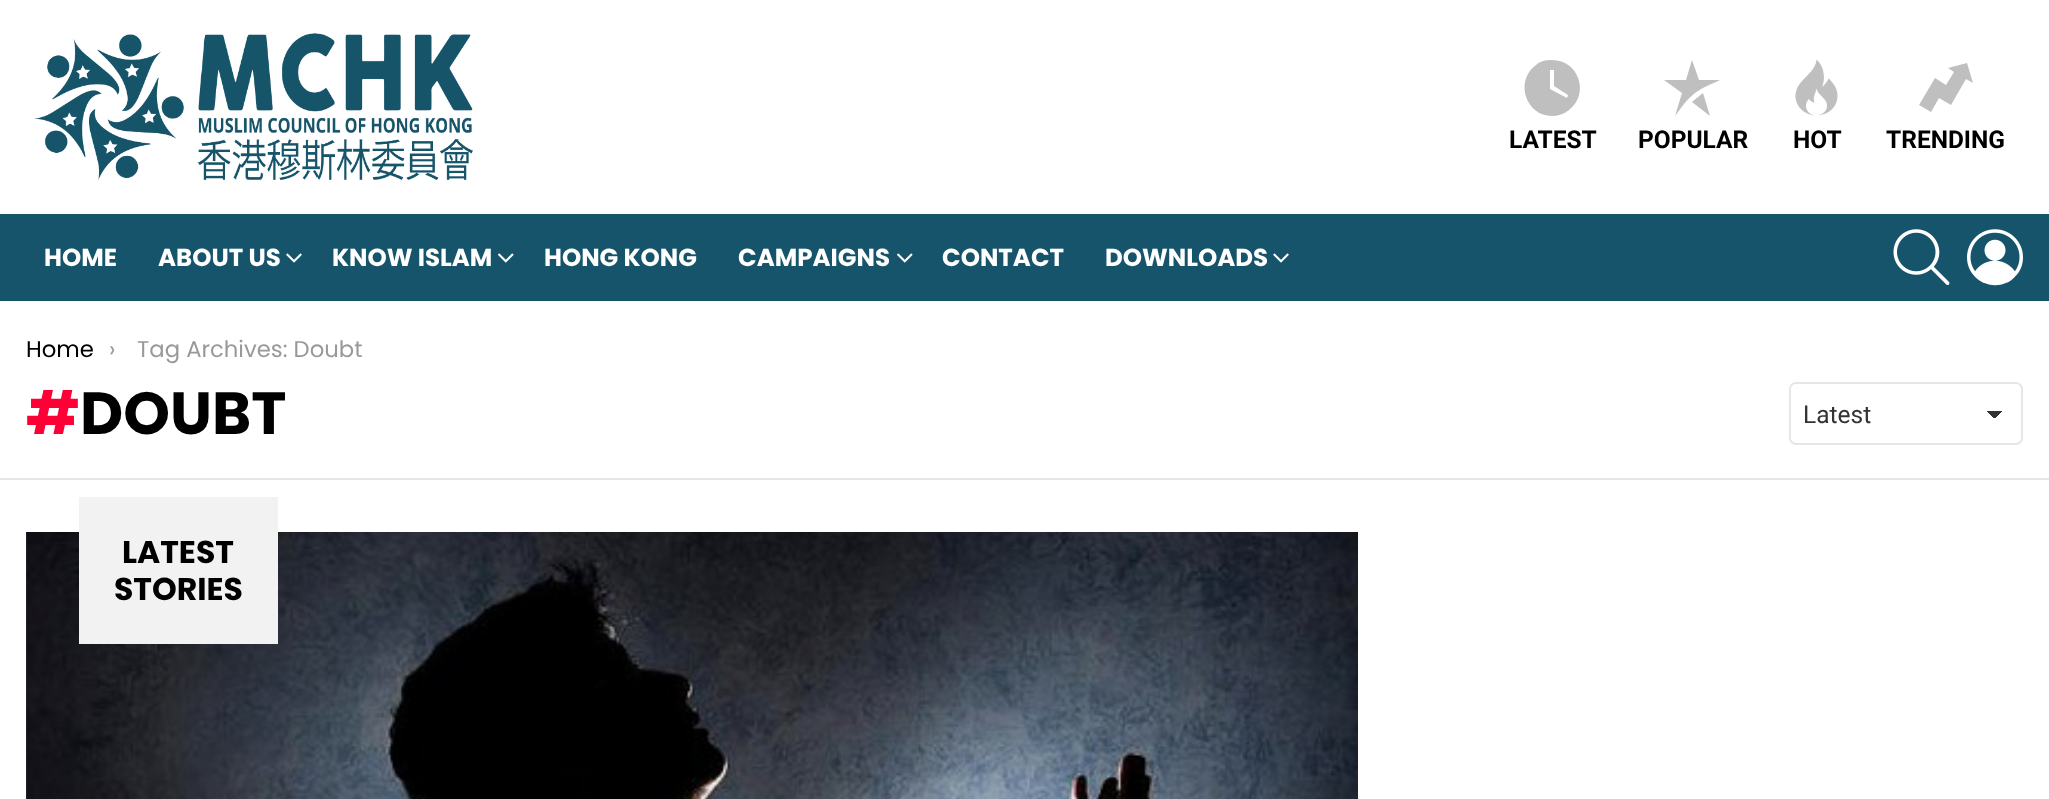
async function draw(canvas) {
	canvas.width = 2049;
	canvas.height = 799;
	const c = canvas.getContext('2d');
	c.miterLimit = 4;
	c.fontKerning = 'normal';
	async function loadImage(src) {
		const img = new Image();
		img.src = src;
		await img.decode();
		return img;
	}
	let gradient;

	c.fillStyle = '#fff';
	c.fillRect(0, 0, 2049, 799);
	c.drawImage(await loadImage('img1.png'), 34, 33, 439, 147);
	c.fillStyle = '#bfbfbf';
	c.beginPath();
	c.moveTo(1552, 60);
	c.bezierCurveTo(1546, 60, 1540, 61, 1536, 65);
	c.bezierCurveTo(1514, 81, 1526, 116, 1552, 116);
	c.bezierCurveTo(1558, 116, 1564, 114, 1569, 110);
	c.bezierCurveTo(1590, 94, 1579, 60, 1552, 60);
	c.closePath();
	c.moveTo(1567, 98);
	c.lineTo(1550, 89);
	c.lineTo(1550, 70);
	c.lineTo(1554, 70);
	c.lineTo(1554, 86);
	c.lineTo(1568, 95);
	c.closePath();
	c.fill();
	c.font = 'bold 24.5px Roboto';
	c.fillStyle = '#000';
	c.fillText('LATEST', 1509, 148);
	c.fillStyle = '#bfbfbf';
	c.beginPath();
	c.moveTo(1695, 93);
	c.bezierCurveTo(1703, 87, 1712, 84, 1720, 80);
	c.lineTo(1699, 80);
	c.lineTo(1692, 60);
	c.lineTo(1686, 80);
	c.lineTo(1664, 80);
	c.lineTo(1682, 93);
	c.lineTo(1675, 116);
	c.bezierCurveTo(1681, 108, 1687, 99, 1695, 93);
	c.closePath();
	c.moveTo(1692, 102);
	c.lineTo(1710, 116);
	c.lineTo(1703, 93);
	c.closePath();
	c.fill();
	c.fillStyle = '#000';
	c.fillText('POPULAR', 1638, 148);
	c.drawImage(await loadImage('img2.png'), 1795, 59, 43, 57);
	c.fillText('HOT', 1793, 148);
	c.fillStyle = '#bfbfbf';
	c.beginPath();
	c.moveTo(1946, 85);
	c.lineTo(1954, 72);
	c.lineTo(1948, 68);
	c.lineTo(1967, 63);
	c.lineTo(1973, 83);
	c.lineTo(1966, 79);
	c.lineTo(1951, 105);
	c.lineTo(1939, 98);
	c.lineTo(1931, 112);
	c.lineTo(1919, 105);
	c.lineTo(1935, 78);
	c.closePath();
	c.fill();
	c.fillStyle = '#000';
	c.fillText('TRENDING', 1886, 148);
	c.fillStyle = '#15546a';
	c.fillRect(0, 214, 2049, 87);
	c.font = 'bold 24.5px Poppins';
	c.fillStyle = '#fff';
	c.fillText('HOME', 44, 266);
	c.fillText('ABOUT US', 158, 266);
	c.drawImage(await loadImage('img3.png'), 286, 253, 16, 10);
	c.fillText('KNOW ISLAM', 332, 266);
	c.drawImage(await loadImage('img4.png'), 498, 253, 16, 10);
	c.fillText('HONG KONG', 544, 266);
	c.fillText('CAMPAIGNS', 738, 266);
	c.drawImage(await loadImage('img4.png'), 897, 253, 16, 10);
	c.fillText('CONTACT', 942, 266);
	c.fillText('DOWNLOADS', 1105, 266);
	c.drawImage(await loadImage('img3.png'), 1273, 253, 16, 10);
	c.drawImage(await loadImage('img5.png'), 1893, 229, 57, 56);
	c.drawImage(await loadImage('img6.png'), 1967, 229, 56, 57);
	c.font = '22.75px Poppins';
	c.fillStyle = '#000';
	c.fillText('Home', 26, 357);
	c.fillStyle = '#999';
	c.fillText('›', 109, 357);
	c.fillText('Tag Archives: Doubt', 137, 357);
	c.font = 'bold 59.5px Poppins';
	c.fillStyle = '#ff0036';
	c.fillText('#', 26, 434);
	c.fillStyle = '#000';
	c.fillText('DOUBT', 80, 434);
	gradient = c.createLinearGradient(1995, 411, 2003, 419);
	gradient.addColorStop(0.5, '#333');
	gradient.addColorStop(0.5, '#fff');
	c.fillStyle = gradient;
	c.fillRect(1995, 411, 9, 7);
	gradient = c.createLinearGradient(1987, 419, 1995, 411);
	gradient.addColorStop(0.5, '#fff');
	gradient.addColorStop(0.5, '#333');
	c.fillStyle = gradient;
	c.fillRect(1986, 411, 9, 7);
	c.beginPath();
	c.roundRect(1790, 383, 232, 61, 6);
	c.strokeStyle = '#e6e6e6';
	c.lineWidth = 2;
	c.stroke();
	c.font = '24.5px Roboto';
	c.fillStyle = '#333';
	c.fillText('Latest', 1803, 423);
	c.fillStyle = '#e6e6e6';
	c.fillRect(0, 478, 2049, 2);
	c.fillStyle = '#333';
	c.fillRect(26, 532, 1, 267);
	c.drawImage(await loadImage('img7.png'), 26, 532, 1332, 267);
	c.fillStyle = '#f2f2f2';
	c.fillRect(79, 497, 199, 147);
	c.font = 'bold 31.5px Poppins';
	c.fillStyle = '#000';
	c.fillText('LATEST', 122, 563);
	c.fillText('STORIES', 114, 600);
}

draw(document.querySelector('canvas'));
